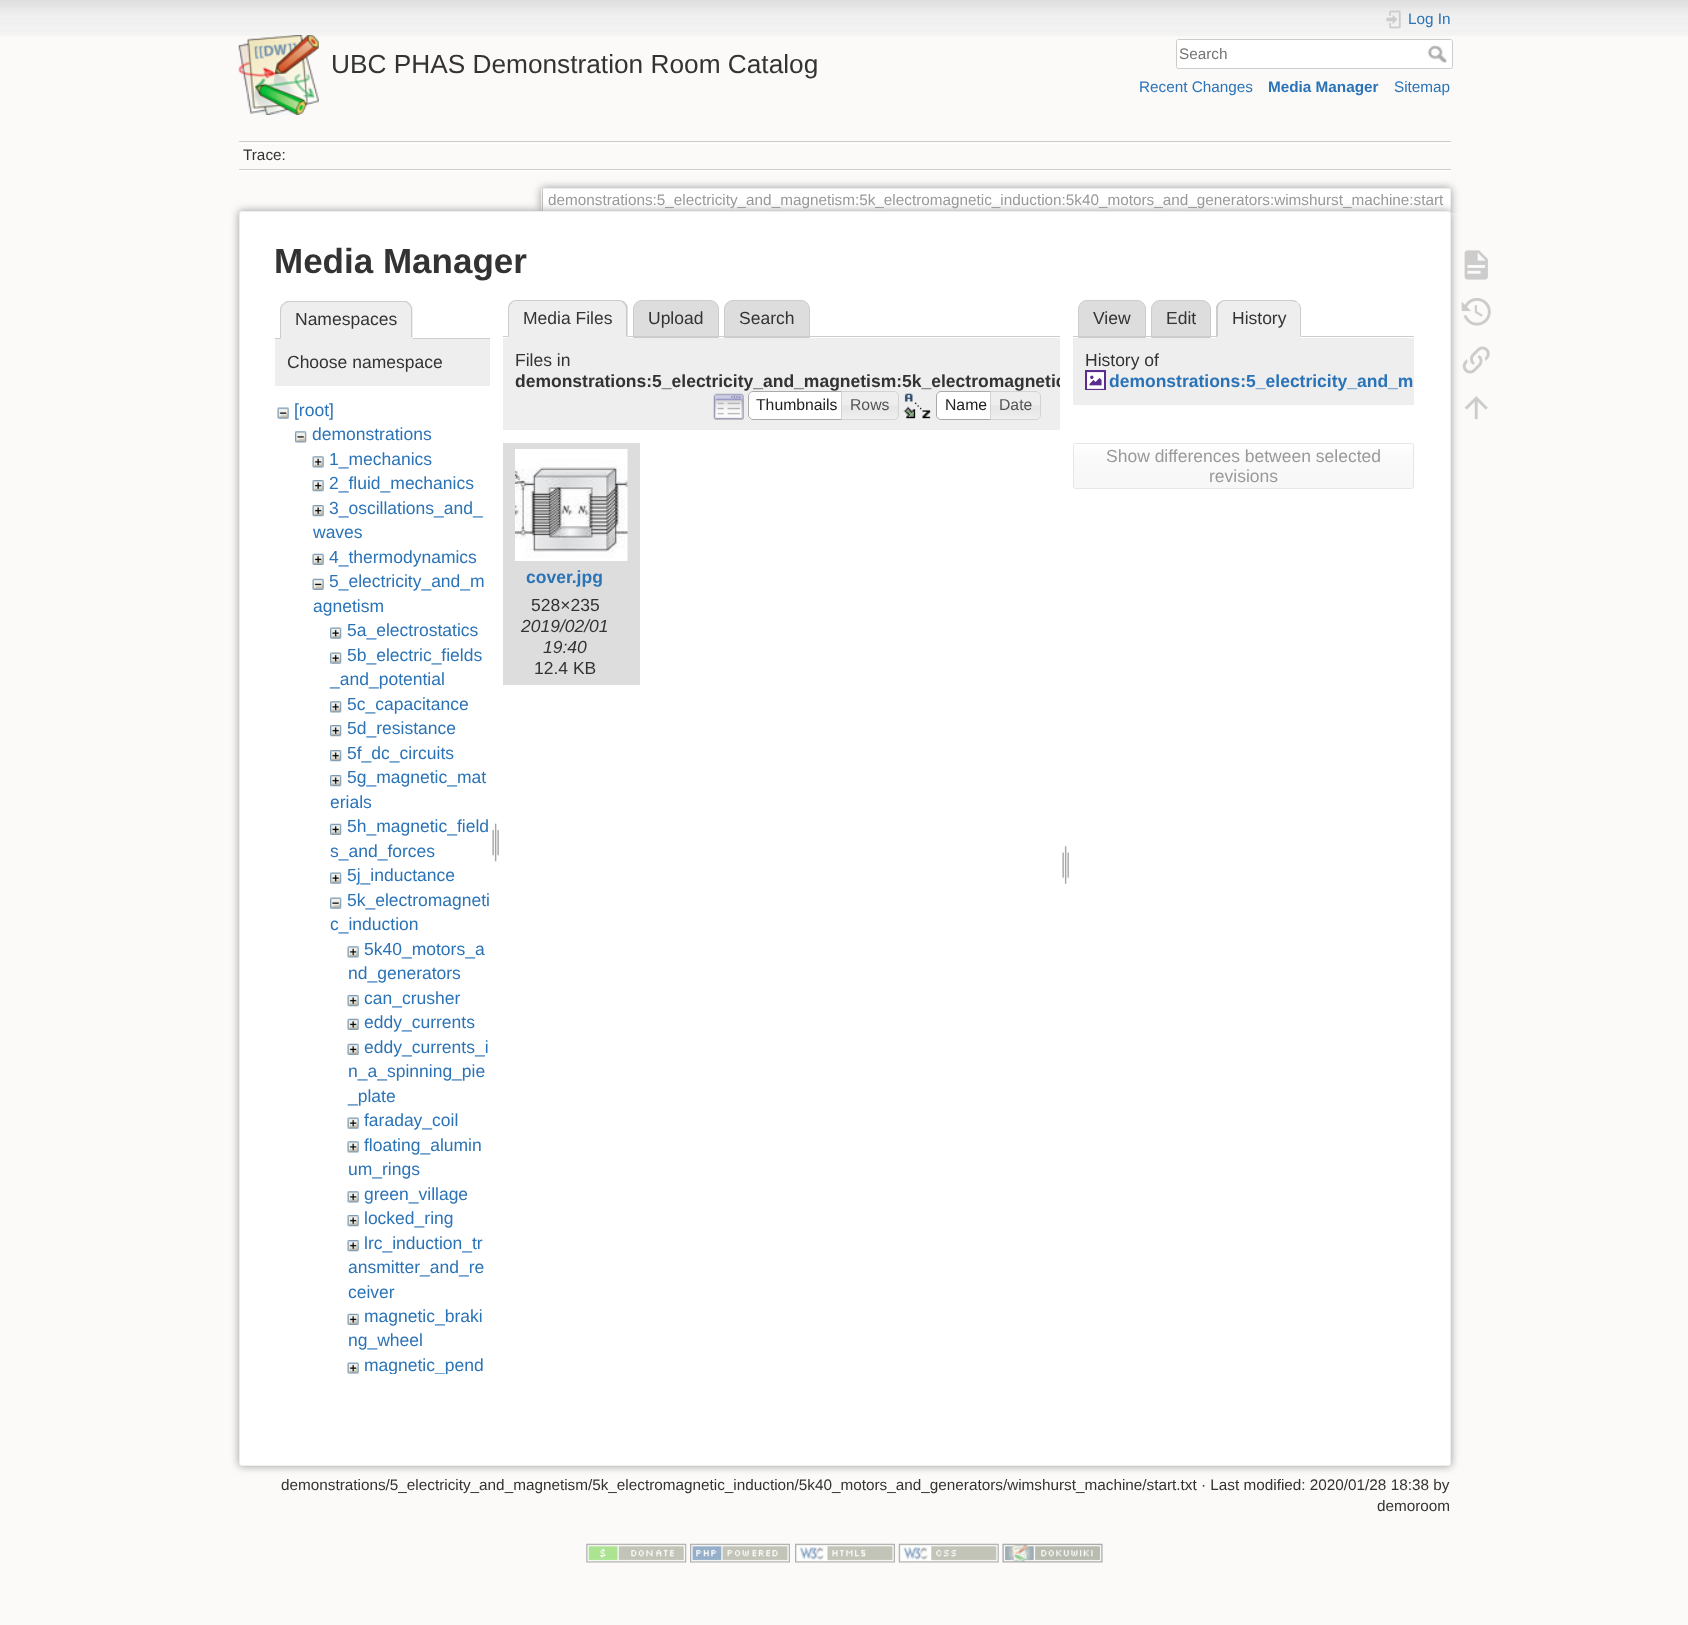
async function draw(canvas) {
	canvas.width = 1688;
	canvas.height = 1625;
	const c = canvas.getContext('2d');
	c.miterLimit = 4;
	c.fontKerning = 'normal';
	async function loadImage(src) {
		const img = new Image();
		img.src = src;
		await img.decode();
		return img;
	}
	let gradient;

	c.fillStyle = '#fbfaf9';
	c.fillRect(0, 0, 1688, 1625);
	c.drawImage(await loadImage('img1.png'), 0, 0, 1688, 36);
	c.drawImage(await loadImage('img2.png'), 238, 35, 81, 80);
	c.font = '26.25px Liberation Sans';
	c.fillStyle = '#333';
	c.fillText('UBC PHAS Demonstration Room Catalog', 331, 73);
	c.drawImage(await loadImage('img3.png'), 1386, 10, 15, 19);
	c.font = '15.3px Liberation Sans';
	c.fillStyle = '#2b73b7';
	c.fillText('Log In', 1408, 24);
	c.fillStyle = '#fff';
	c.beginPath();
	c.roundRect(1176.5, 39.5, 276, 29, 2);
	c.fill();
	c.strokeStyle = '#ccc';
	c.stroke();
	c.fillStyle = '#757575';
	c.fillText('Search', 1179, 59);
	c.drawImage(await loadImage('img4.png'), 1427, 45, 20, 18);
	c.fillStyle = '#2b73b7';
	c.fillText('Recent Changes', 1139, 92);
	c.font = 'bold 15.3px Liberation Sans';
	c.fillText('Media Manager', 1268, 92);
	c.font = '15.3px Liberation Sans';
	c.fillText('Sitemap', 1394, 92);
	for (const [x, y, w, h, color] of [
		[239, 141, 1212, 1, '#ccc'],
		[239, 170, 1212, 1, '#fff'],
		[239, 143, 1212, 1, '#fff'],
		[239, 169, 1212, 1, '#ccc'],
	]) {
		c.fillStyle = color;
		c.fillRect(x, y, w, h);
	}
	c.fillStyle = '#333';
	c.fillText('Trace:', 243, 160);
	c.save();
	c.beginPath();
	c.rect(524, 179, 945, 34);
	c.clip();
	c.fillStyle = '#999';
	c.filter = 'blur(4px)';
	c.beginPath();
	c.roundRect(541, 188, 910, 25, 2.5);
	c.fill();
	c.filter = 'none';
	c.restore();
	c.fillStyle = '#fff';
	c.beginPath();
	c.roundRect(543, 189, 907, 24, [1, 1, 0, 0]);
	c.fill();
	for (const [x, y, w, h, color] of [
		[543, 188, 907, 1, '#eee'],
		[1450, 189, 1, 24, '#eee'],
		[541, 189, 1, 24, '#eee'],
	]) {
		c.fillStyle = color;
		c.fillRect(x, y, w, h);
	}
	c.fillStyle = '#999';
	c.fillText('demonstrations:5_electricity_and_magnetism:5k_electromagnetic_induction:5k40_motors_and_generators:wimshurst_machine:start', 548, 205);
	c.filter = 'blur(4.5px)';
	c.beginPath();
	c.roundRect(239, 211, 1212, 1255, 2.5);
	c.fill();
	c.filter = 'none';
	c.fillStyle = '#fff';
	c.beginPath();
	c.roundRect(239.5, 211.5, 1211, 1254, 2);
	c.fill();
	c.strokeStyle = '#eee';
	c.stroke();
	c.font = 'bold 35px Liberation Sans';
	c.fillStyle = '#333';
	c.fillText('Media Manager', 274, 273);
	c.fillStyle = '#ccc';
	c.fillRect(275, 338, 215, 1);
	c.fillStyle = '#eee';
	c.beginPath();
	c.roundRect(280, 301, 133, 38, [9, 9, 0, 0]);
	c.fill();
	c.fillStyle = '#ccc';
	c.beginPath();
	c.moveTo(289, 302);
	c.bezierCurveTo(287, 302, 285, 303, 283, 305);
	c.lineTo(283, 304);
	c.bezierCurveTo(284, 303, 285, 302, 287, 301);
	c.lineTo(406, 301);
	c.bezierCurveTo(408, 302, 409, 303, 410, 304);
	c.lineTo(409, 305);
	c.bezierCurveTo(408, 303, 406, 302, 404, 302);
	c.closePath();
	c.fill();
	c.beginPath();
	c.moveTo(410, 304);
	c.bezierCurveTo(411.5, 305.5, 412, 307.5, 412, 310);
	c.lineTo(412, 338);
	c.lineTo(411, 337);
	c.lineTo(411, 310);
	c.bezierCurveTo(411, 308, 410.5, 306, 409, 304.5);
	c.closePath();
	c.fill();
	c.fillStyle = '#eee';
	c.beginPath();
	c.moveTo(412, 339);
	c.lineTo(280, 339);
	c.lineTo(281, 338);
	c.lineTo(411, 338);
	c.lineTo(411, 337);
	c.closePath();
	c.fill();
	c.fillStyle = '#ccc';
	c.beginPath();
	c.moveTo(280, 339);
	c.lineTo(281, 338);
	c.lineTo(281, 310);
	c.bezierCurveTo(281, 308, 282, 306, 283.5, 304.5);
	c.lineTo(282.5, 304);
	c.bezierCurveTo(281, 305.5, 280, 307.5, 280, 310);
	c.closePath();
	c.fill();
	c.font = '17.5px Liberation Sans';
	c.fillStyle = '#333';
	c.fillText('Namespaces', 295, 325);
	c.fillStyle = '#eee';
	c.fillRect(275, 339, 215, 47);
	c.fillStyle = '#333';
	c.fillText('Choose namespace', 287, 368);
	c.drawImage(await loadImage('img5.png'), 277, 407, 12, 12);
	c.fillStyle = '#2b73b7';
	c.fillText('[root]', 294, 416);
	c.drawImage(await loadImage('img6.png'), 295, 431, 12, 12);
	c.fillText('demonstrations', 312, 440);
	c.drawImage(await loadImage('img7.png'), 312, 456, 12, 12);
	c.fillText('1_mechanics', 329, 465);
	c.drawImage(await loadImage('img8.png'), 312, 480, 12, 12);
	c.fillText('2_fluid_mechanics', 329, 489);
	c.drawImage(await loadImage('img8.png'), 312, 505, 12, 12);
	c.fillText('3_oscillations_and_', 329, 514);
	c.fillText('waves', 313, 538);
	c.drawImage(await loadImage('img9.png'), 312, 553, 12, 12);
	c.fillText('4_thermodynamics', 329, 563);
	c.drawImage(await loadImage('img10.png'), 312, 578, 12, 12);
	c.fillText('5_electricity_and_m', 329, 587);
	c.fillText('agnetism', 313, 612);
	c.drawImage(await loadImage('img11.png'), 330, 627, 12, 12);
	c.fillText('5a_electrostatics', 347, 636);
	c.drawImage(await loadImage('img11.png'), 330, 652, 12, 12);
	c.fillText('5b_electric_fields', 347, 661);
	c.fillText('_and_potential', 330, 685);
	c.drawImage(await loadImage('img12.png'), 330, 701, 12, 12);
	c.fillText('5c_capacitance', 347, 710);
	c.drawImage(await loadImage('img13.png'), 330, 725, 12, 12);
	c.fillText('5d_resistance', 347, 734);
	c.drawImage(await loadImage('img13.png'), 330, 750, 12, 12);
	c.fillText('5f_dc_circuits', 347, 759);
	c.drawImage(await loadImage('img14.png'), 330, 775, 12, 12);
	c.fillText('5g_magnetic_mat', 347, 783);
	c.fillText('erials', 330, 808);
	c.drawImage(await loadImage('img15.png'), 330, 823, 12, 12);
	c.fillText('5h_magnetic_field', 347, 832);
	c.fillText('s_and_forces', 330, 857);
	c.drawImage(await loadImage('img11.png'), 330, 872, 12, 12);
	c.fillText('5j_inductance', 347, 881);
	c.drawImage(await loadImage('img16.png'), 330, 897, 12, 12);
	c.fillText('5k_electromagneti', 347, 906);
	c.fillText('c_induction', 330, 930);
	c.drawImage(await loadImage('img17.png'), 347, 946, 12, 12);
	c.fillText('5k40_motors_a', 364, 955);
	c.fillText('nd_generators', 348, 979);
	c.drawImage(await loadImage('img18.png'), 347, 995, 12, 12);
	c.fillText('can_crusher', 364, 1004);
	c.drawImage(await loadImage('img19.png'), 347, 1018, 12, 12);
	c.fillText('eddy_currents', 364, 1028);
	c.drawImage(await loadImage('img19.png'), 347, 1043, 12, 12);
	for (const [text, x, y] of [
		['eddy_currents_i', 364, 1053],
		['n_a_spinning_pie', 348, 1077],
		['_plate', 348, 1102],
	]) {
		c.fillText(text, x, y);
	}
	c.drawImage(await loadImage('img20.png'), 347, 1117, 12, 12);
	c.fillText('faraday_coil', 364, 1126);
	c.drawImage(await loadImage('img17.png'), 347, 1141, 12, 12);
	c.fillText('floating_alumin', 364, 1151);
	c.fillText('um_rings', 348, 1175);
	c.drawImage(await loadImage('img17.png'), 347, 1191, 12, 12);
	c.fillText('green_village', 364, 1200);
	c.drawImage(await loadImage('img18.png'), 347, 1215, 12, 12);
	c.fillText('locked_ring', 364, 1224);
	c.drawImage(await loadImage('img18.png'), 347, 1240, 12, 12);
	for (const [text, x, y] of [
		['lrc_induction_tr', 364, 1249],
		['ansmitter_and_re', 348, 1273],
		['ceiver', 348, 1298],
	]) {
		c.fillText(text, x, y);
	}
	c.drawImage(await loadImage('img19.png'), 347, 1313, 12, 12);
	c.fillText('magnetic_braki', 364, 1322);
	c.fillText('ng_wheel', 348, 1346);
	c.drawImage(await loadImage('img21.png'), 347, 1362, 12, 12);
	c.save();
	c.beginPath();
	c.rect(275, 399, 215, 975);
	c.clip();
	c.fillText('magnetic_pend', 364, 1371);
	c.restore();
	c.drawImage(await loadImage('img22.png'), 492, 822, 7, 40);
	c.fillStyle = '#ddd';
	c.beginPath();
	c.roundRect(633.5, 300.5, 85, 37, [8.5, 8.5, 0, 0]);
	c.fill();
	c.strokeStyle = '#ccc';
	c.stroke();
	c.beginPath();
	c.roundRect(724.5, 300.5, 85, 37, [8.5, 8.5, 0, 0]);
	c.fill();
	c.stroke();
	c.fillStyle = '#ccc';
	c.fillRect(503, 336, 557, 1);
	c.fillStyle = '#eee';
	c.beginPath();
	c.roundRect(508, 300, 120, 38, [9, 9, 0, 0]);
	c.fill();
	c.fillStyle = '#ccc';
	c.beginPath();
	c.moveTo(516, 300);
	c.bezierCurveTo(514, 300, 512, 301, 510, 303);
	c.lineTo(511, 304);
	c.bezierCurveTo(512, 302, 514, 301, 516, 301);
	c.lineTo(619, 301);
	c.bezierCurveTo(621, 301, 623, 302, 624, 304);
	c.lineTo(625, 302);
	c.bezierCurveTo(624, 301, 621, 300, 619, 300);
	c.closePath();
	c.fill();
	c.beginPath();
	c.moveTo(625, 302.5);
	c.bezierCurveTo(626, 303.5, 627, 304.5, 627.5, 306);
	c.lineTo(627.5, 337.5);
	c.lineTo(626, 336);
	c.lineTo(626, 309);
	c.bezierCurveTo(626, 307, 625, 305, 624, 303.5);
	c.closePath();
	c.fill();
	c.fillStyle = '#eee';
	c.beginPath();
	c.moveTo(628, 338);
	c.lineTo(508, 338);
	c.lineTo(509, 336);
	c.lineTo(626, 336);
	c.closePath();
	c.fill();
	c.fillStyle = '#ccc';
	c.beginPath();
	c.moveTo(510, 302.5);
	c.bezierCurveTo(509, 304, 508, 306.5, 508, 309);
	c.lineTo(508, 337);
	c.lineTo(509, 336);
	c.lineTo(509, 309);
	c.bezierCurveTo(509, 307, 510, 305, 511, 303.5);
	c.closePath();
	c.fill();
	c.fillStyle = '#333';
	for (const [text, x, y] of [
		['Media Files', 523, 324],
		['Upload', 648, 324],
		['Search', 739, 324],
	]) {
		c.fillText(text, x, y);
	}
	c.fillStyle = '#eee';
	c.fillRect(503, 338, 557, 92);
	c.fillStyle = '#333';
	c.fillText('Files in', 515, 366);
	c.save();
	c.beginPath();
	c.rect(503, 338, 557, 92);
	c.clip();
	c.font = 'bold 17.5px Liberation Sans';
	c.fillText('demonstrations:5_electricity_and_magnetism:5k_electromagnetic', 515, 387);
	c.restore();
	c.drawImage(await loadImage('img23.png'), 713, 393, 31, 27);
	c.fillStyle = '#fff';
	c.beginPath();
	c.roundRect(748, 391, 100, 29, [5, 0, 0, 5]);
	c.fill();
	c.drawImage(await loadImage('img24.png'), 747, 392, 4, 28);
	c.beginPath();
	c.roundRect(748.5, 391.5, 99, 28, [4.5, 0, 0, 4.5]);
	c.strokeStyle = '#aaa';
	c.stroke();
	c.font = '15.75px Liberation Sans';
	c.fillStyle = '#212121';
	c.fillText('Thumbnails', 756, 410);
	c.drawImage(await loadImage('img25.png'), 842, 391, 57, 29);
	c.beginPath();
	c.roundRect(841.5, 391.5, 57, 28, [0, 4.5, 4.5, 0]);
	c.strokeStyle = '#d3d3d3';
	c.stroke();
	c.fillStyle = '#555';
	c.fillText('Rows', 850, 410);
	c.drawImage(await loadImage('img26.png'), 903, 393, 28, 26);
	c.fillStyle = '#fff';
	c.beginPath();
	c.roundRect(936.5, 391.5, 59, 28, [4.5, 0, 0, 4.5]);
	c.fill();
	c.strokeStyle = '#aaa';
	c.stroke();
	c.fillStyle = '#212121';
	c.fillText('Name', 945, 410);
	c.drawImage(await loadImage('img27.png'), 991, 391, 50, 29);
	c.beginPath();
	c.roundRect(990.5, 391.5, 50, 28, [0, 4.5, 4.5, 0]);
	c.strokeStyle = '#d3d3d3';
	c.stroke();
	c.fillStyle = '#555';
	c.fillText('Date', 999, 410);
	c.fillStyle = '#ddd';
	c.fillRect(503, 443, 137, 242);
	c.drawImage(await loadImage('img28.png'), 515, 449, 113, 112);
	c.font = 'bold 17.5px Liberation Sans';
	c.fillStyle = '#2b73b7';
	c.fillText('cover.jpg', 526, 583);
	c.font = '17.5px Liberation Sans';
	c.fillStyle = '#333';
	c.fillText('528×235', 531, 611);
	c.font = 'italic 17.5px Liberation Sans';
	c.fillText('2019/02/01', 521, 632);
	c.fillText('19:40', 543, 653);
	c.font = '17.5px Liberation Sans';
	c.fillText('12.4 KB', 534, 674);
	c.drawImage(await loadImage('img29.png'), 1062, 845, 7, 39);
	c.fillStyle = '#ddd';
	c.beginPath();
	c.roundRect(1078.5, 300.5, 67, 37, [8.5, 8.5, 0, 0]);
	c.fill();
	c.strokeStyle = '#ccc';
	c.stroke();
	c.fillStyle = '#333';
	c.fillText('View', 1093, 324);
	c.fillStyle = '#ddd';
	c.beginPath();
	c.roundRect(1151.5, 300.5, 59, 37, [8.5, 8.5, 0, 0]);
	c.fill();
	c.stroke();
	c.fillStyle = '#333';
	c.fillText('Edit', 1166, 324);
	c.fillStyle = '#ccc';
	c.fillRect(1073, 336, 341, 1);
	c.fillStyle = '#eee';
	c.beginPath();
	c.roundRect(1216, 300, 85, 38, [9, 9, 0, 0]);
	c.fill();
	c.fillStyle = '#ccc';
	c.beginPath();
	c.moveTo(1225, 300);
	c.bezierCurveTo(1223, 300, 1220, 301, 1219, 303);
	c.lineTo(1220, 304);
	c.bezierCurveTo(1221, 302, 1223, 301, 1225, 301);
	c.lineTo(1292, 301);
	c.bezierCurveTo(1294, 301, 1296, 302, 1298, 303);
	c.bezierCurveTo(1297, 301, 1295, 300, 1292, 300);
	c.closePath();
	c.fill();
	c.beginPath();
	c.moveTo(1298.5, 303);
	c.bezierCurveTo(1300, 304.5, 1301, 306.5, 1301, 309);
	c.lineTo(1301, 337);
	c.lineTo(1300, 336);
	c.lineTo(1300, 309);
	c.bezierCurveTo(1300, 307, 1299, 305, 1298, 303.5);
	c.closePath();
	c.fill();
	c.fillStyle = '#eee';
	c.beginPath();
	c.moveTo(1301, 337);
	c.lineTo(1216, 338);
	c.lineTo(1218, 336);
	c.lineTo(1300, 336);
	c.closePath();
	c.fill();
	c.fillStyle = '#ccc';
	c.beginPath();
	c.moveTo(1216, 337.5);
	c.lineTo(1216, 307);
	c.bezierCurveTo(1216.5, 305, 1217.5, 303.5, 1219, 302.5);
	c.lineTo(1220, 303.5);
	c.bezierCurveTo(1218.5, 305, 1218, 307, 1218, 309);
	c.lineTo(1218, 336);
	c.closePath();
	c.fill();
	c.fillStyle = '#333';
	c.fillText('History', 1232, 324);
	c.fillStyle = '#eee';
	c.fillRect(1073, 338, 341, 67);
	c.fillStyle = '#333';
	c.fillText('History of', 1085, 366);
	c.drawImage(await loadImage('img30.png'), 1085, 370, 21, 20);
	c.font = 'bold 17.5px Liberation Sans';
	c.fillStyle = '#2b73b7';
	c.fillText('demonstrations:5_electricity_and_m', 1109, 387);
	c.save();
	c.beginPath();
	c.roundRect(1073, 443, 341, 46, 2.5);
	c.clip();
	gradient = c.createLinearGradient(1243, 444, 1243, 488);
	gradient.addColorStop(0, '#fff');
	gradient.addColorStop(0.3, '#fafafa');
	gradient.addColorStop(0.99, '#f7f7f7');
	gradient.addColorStop(0.99, '#e6e6e6');
	c.fillStyle = gradient;
	c.fillRect(1073, 444, 341, 44);
	c.restore();
	c.beginPath();
	c.roundRect(1073.5, 443.5, 340, 45, 2);
	c.strokeStyle = '#e6e6e6';
	c.stroke();
	c.font = '17.5px Liberation Sans';
	c.fillStyle = '#999';
	c.fillText('Show differences between selected', 1106, 462);
	c.fillText('revisions', 1209, 482);
	c.font = '15.3px Liberation Sans';
	c.fillStyle = '#333';
	c.fillText('demonstrations/5_electricity_and_magnetism/5k_electromagnetic_induction/5k40_motors_and_generators/wimshurst_machine/start.txt · Last modified: 2020/01/28 18:38 by', 281, 1490);
	c.fillText('demoroom', 1377, 1511);
	c.drawImage(await loadImage('img31.png'), 1464, 250, 24, 30);
	c.drawImage(await loadImage('img32.png'), 1461, 298, 30, 28);
	c.drawImage(await loadImage('img33.png'), 1462, 346, 28, 28);
	c.drawImage(await loadImage('img34.png'), 1464, 396, 24, 24);
	c.drawImage(await loadImage('img35.png'), 586, 1543, 101, 20);
	c.drawImage(await loadImage('img36.png'), 690, 1543, 100, 20);
	c.drawImage(await loadImage('img37.png'), 795, 1543, 100, 20);
	c.drawImage(await loadImage('img38.png'), 898, 1543, 101, 20);
	c.drawImage(await loadImage('img39.png'), 1002, 1543, 101, 20);
}

draw(document.querySelector('canvas'));
